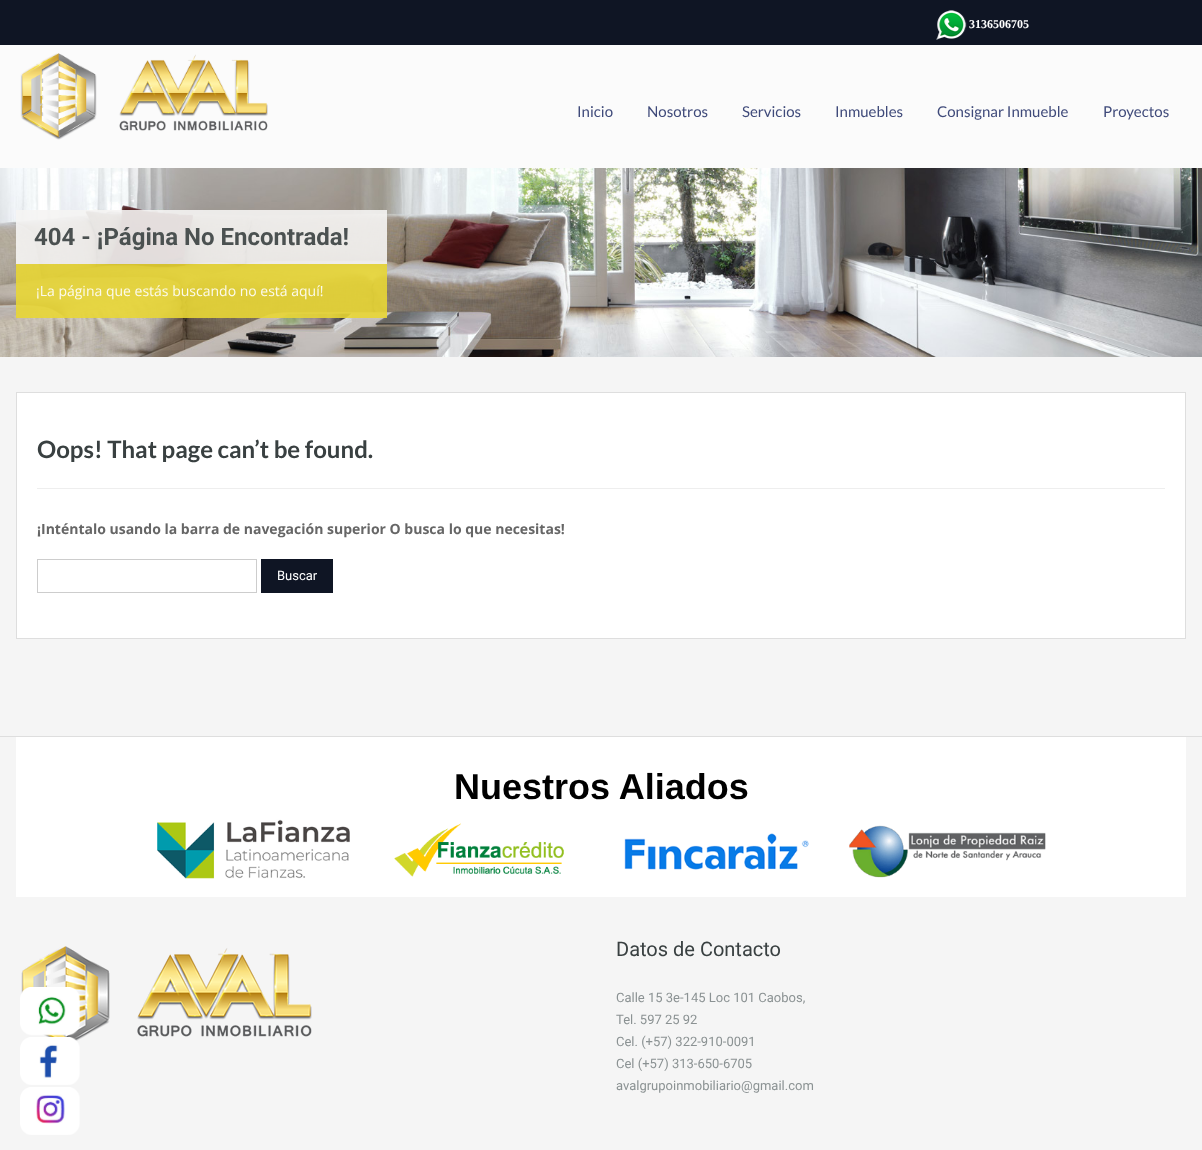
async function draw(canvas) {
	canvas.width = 1202;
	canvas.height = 1150;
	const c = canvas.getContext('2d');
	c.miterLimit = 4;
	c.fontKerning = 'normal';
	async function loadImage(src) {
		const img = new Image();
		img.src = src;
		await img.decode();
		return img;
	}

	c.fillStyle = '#f5f5f5';
	c.fillRect(0, 0, 1202, 1150);
	c.fillStyle = '#fbfbfb';
	c.fillRect(0, 45, 1202, 123);
	c.fillStyle = '#0f1524';
	c.fillRect(0, 0, 1202, 45);
	c.drawImage(await loadImage('img1.png'), 936, 10, 31, 30);
	c.font = 'bold 12px Liberation Serif';
	c.fillStyle = '#fff';
	c.fillText('3136506705', 969, 28);
	c.drawImage(await loadImage('img2.png'), 20, 53, 248, 87);
	c.font = '15px Lato';
	c.fillStyle = '#3f4a7a';
	for (const [text, x, y] of [
		['Inicio', 577, 117],
		['Nosotros', 647, 117],
		['Servicios', 742, 117],
		['Inmuebles', 835, 117],
		['Consignar Inmueble', 937, 117],
		['Proyectos', 1103, 117],
	]) {
		c.fillText(text, x, y);
	}
	c.drawImage(await loadImage('img3.png'), 0, 168, 1202, 189);
	c.fillStyle = '#f5f4f3e6';
	c.fillRect(16, 210, 371, 54);
	c.font = 'bold 24px Roboto';
	c.fillStyle = '#4b5151';
	c.fillText('404 - ¡Página No Encontrada!', 34, 245);
	c.fillStyle = '#e8d635e6';
	c.fillRect(16, 264, 371, 54);
	c.font = '14px Open Sans';
	c.fillStyle = '#fcfaec';
	c.fillText('¡La página que estás buscando no está aquí!', 36, 296);
	for (const [x, y, w, h, color] of [
		[1185, 392, 1, 247, '#dedede'],
		[16, 392, 1, 247, '#dedede'],
		[17, 393, 1168, 245, '#fff'],
		[17, 392, 1168, 1, '#dedede'],
		[17, 638, 1168, 1, '#dedede'],
		[37, 488, 1128, 1, '#eee'],
	]) {
		c.fillStyle = color;
		c.fillRect(x, y, w, h);
	}
	c.font = 'bold 24px Lato';
	c.fillStyle = '#394041';
	c.fillText('Oops! That page can’t be found.', 37, 458);
	c.font = 'bold 14px Open Sans';
	c.fillStyle = '#666';
	c.fillText('¡Inténtalo usando la barra de navegación superior O busca lo que necesitas!', 37, 534);
	c.strokeStyle = '#cdcdcd';
	c.strokeRect(37.5, 559.5, 219, 33);
	c.fillStyle = '#0f1524';
	c.fillRect(261, 559, 72, 34);
	c.font = '13px Roboto';
	c.fillStyle = '#fff';
	c.fillText('Buscar', 277, 580);
	c.drawImage(await loadImage('img9.png'), 21, 946, 291, 96);
	c.drawImage(await loadImage('img4.png'), 20, 987, 60, 49);
	c.fillStyle = '#dedede';
	c.fillRect(0, 736, 1202, 1);
	c.fillStyle = '#fff';
	c.fillRect(16, 737, 1170, 160);
	c.font = 'bold 36px Liberation Sans';
	c.fillStyle = '#000';
	c.fillText('Nuestros Aliados', 454, 799);
	c.drawImage(await loadImage('img5.png'), 157, 819, 193, 60);
	c.drawImage(await loadImage('img6.png'), 394, 823, 170, 54);
	c.drawImage(await loadImage('img7.png'), 624, 833, 185, 37);
	c.drawImage(await loadImage('img8.png'), 849, 825, 197, 53);
	c.font = '20px Roboto';
	c.fillStyle = '#394041';
	c.fillText('Datos de Contacto', 616, 956);
	c.font = '13px Roboto';
	c.fillStyle = '#8b9293';
	for (const [text, x, y] of [
		['Calle 15 3e-145 Loc 101 Caobos,', 616, 1002],
		['Tel. 597 25 92', 616, 1024],
		['Cel. (+57) 322-910-0091', 616, 1046],
		['Cel (+57) 313-650-6705', 616, 1068],
		['avalgrupoinmobiliario@gmail.com', 616, 1090],
	]) {
		c.fillText(text, x, y);
	}
	c.drawImage(await loadImage('img10.png'), 20, 1037, 60, 48);
	c.drawImage(await loadImage('img11.png'), 20, 1087, 60, 48);
}

draw(document.querySelector('canvas'));
